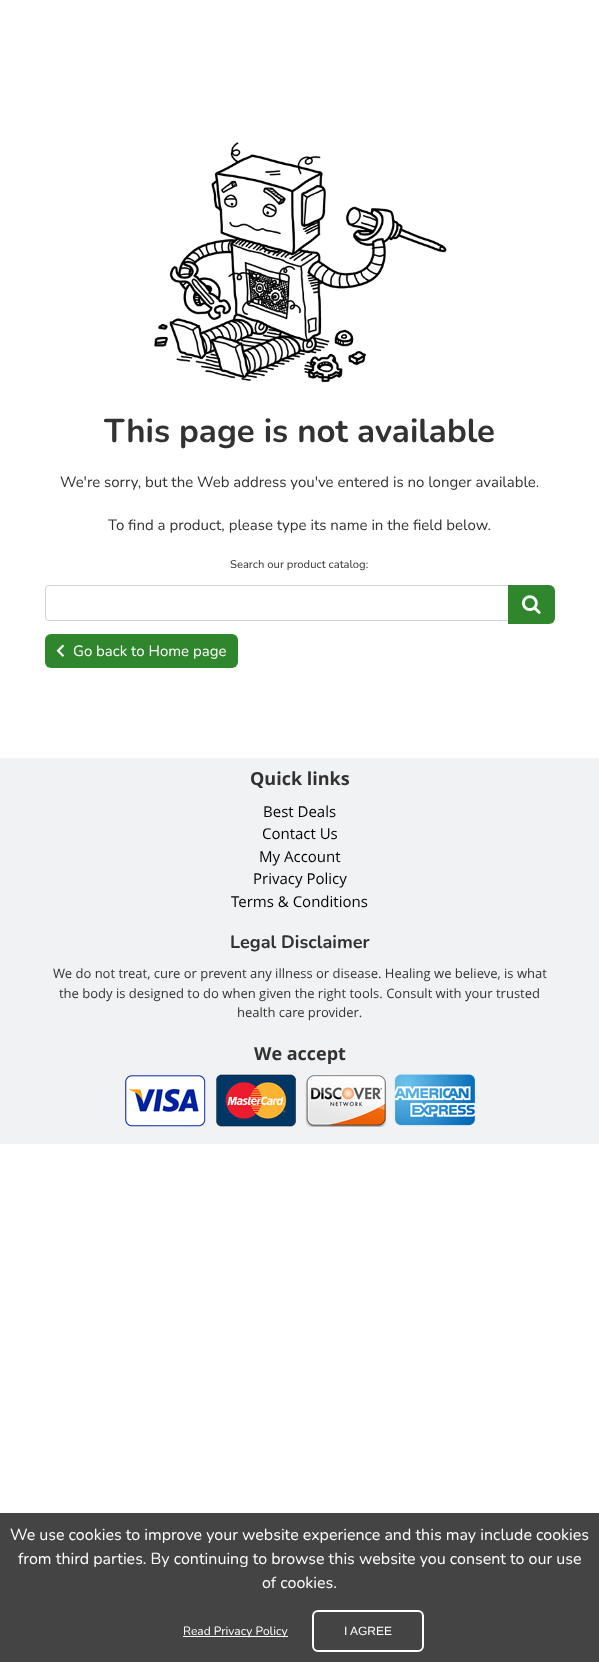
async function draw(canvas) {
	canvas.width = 599;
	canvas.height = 1662;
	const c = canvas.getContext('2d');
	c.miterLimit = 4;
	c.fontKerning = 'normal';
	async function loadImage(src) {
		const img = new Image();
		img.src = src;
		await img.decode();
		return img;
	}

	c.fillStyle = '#fff';
	c.fillRect(0, 0, 599, 1662);
	c.drawImage(await loadImage('img1.png'), 154, 142, 293, 241);
	c.font = 'bold 33px Nunito';
	c.fillStyle = '#323232';
	c.fillText('This page is not available', 104, 442);
	c.font = '15px Nunito';
	c.fillText('We\'re sorry, but the Web address you\'ve entered is no longer available.', 60, 487);
	c.fillText('To find a product, please type its name in the field below.', 108, 530);
	c.font = '11.25px Nunito';
	c.fillText('Search our product catalog:', 230, 568);
	c.beginPath();
	c.roundRect(45.5, 585.5, 463, 35, [3.5, 0, 0, 3.5]);
	c.strokeStyle = '#ced4da';
	c.stroke();
	c.fillStyle = '#2f862d';
	c.beginPath();
	c.roundRect(508, 585, 47, 39, [0, 6, 6, 0]);
	c.fill();
	c.drawImage(await loadImage('img2.png'), 522, 595, 19, 19);
	c.beginPath();
	c.roundRect(45, 634, 193, 34, 6);
	c.fill();
	c.drawImage(await loadImage('img3.png'), 56, 644, 8, 13);
	c.font = '15px Nunito';
	c.fillStyle = '#fff';
	c.fillText('Go back to Home page', 73, 656);
	c.fillStyle = '#f1f2f4';
	c.fillRect(0, 758, 599, 386);
	c.font = 'bold 18px Open Sans';
	c.fillStyle = '#323232';
	c.fillText('Quick links', 250, 785);
	c.font = '15px Open Sans';
	c.fillStyle = '#000';
	for (const [text, x, y] of [
		['Best Deals', 263, 817],
		['Contact Us', 262, 839],
		['My Account', 259, 862],
		['Privacy Policy', 253, 884],
		['Terms & Conditions', 231, 907],
	]) {
		c.fillText(text, x, y);
	}
	c.font = 'bold 18px Nunito';
	c.fillStyle = '#323232';
	c.fillText('Legal Disclaimer', 230, 948);
	c.font = '13px Open Sans';
	for (const [text, x, y] of [
		['We do not treat, cure or prevent any illness or disease. Healing we believe, is what', 53, 978],
		['the body is designed to do when given the right tools. Consult with your trusted', 59, 998],
		['health care provider.', 237, 1017],
	]) {
		c.fillText(text, x, y);
	}
	c.save();
	c.beginPath();
	c.rect(45, 1043, 510, 21);
	c.clip();
	c.font = 'bold 18px Open Sans';
	c.fillText('We accept', 254, 1060);
	c.restore();
	c.drawImage(await loadImage('img4.png'), 125, 1074, 350, 53);
	c.fillStyle = '#444';
	c.fillRect(0, 1513, 599, 149);
	c.font = '16px Nunito';
	c.fillStyle = '#fff';
	for (const [text, x, y] of [
		['We use cookies to improve your website experience and this may include cookies', 10, 1540],
		['from third parties. By continuing to browse this website you consent to our use', 18, 1564],
		['of cookies.', 262, 1588],
	]) {
		c.fillText(text, x, y);
	}
	c.fillRect(183, 1636, 105, 1);
	c.font = '12px Nunito';
	c.fillText('Read Privacy Policy', 183, 1635);
	c.beginPath();
	c.roundRect(313, 1611, 110, 40, 5);
	c.strokeStyle = '#fff';
	c.lineWidth = 2;
	c.stroke();
	c.font = '12px Liberation Sans';
	c.fillText('I AGREE', 344, 1635);
}

draw(document.querySelector('canvas'));
